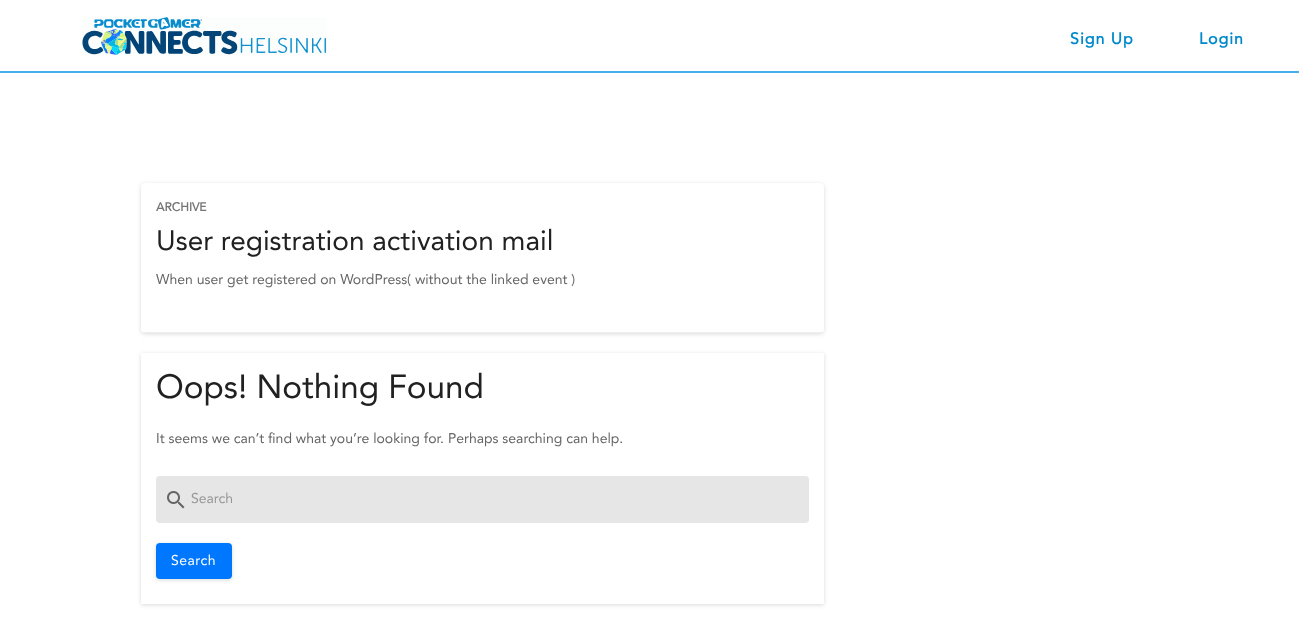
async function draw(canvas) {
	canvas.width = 1299;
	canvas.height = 635;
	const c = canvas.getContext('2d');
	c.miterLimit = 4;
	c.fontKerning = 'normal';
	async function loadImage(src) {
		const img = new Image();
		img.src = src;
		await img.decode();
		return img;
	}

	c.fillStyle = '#fff';
	c.fillRect(0, 0, 1299, 635);
	c.fillStyle = '#46aeea';
	c.fillRect(0, 71, 1299, 2);
	c.drawImage(await loadImage('img1.png'), 82, 17, 245, 38);
	c.letterSpacing = '1px';
	c.font = 'bold 16px Avenir';
	c.fillStyle = '#0089cc';
	c.fillText('Sign Up', 1070, 44);
	c.fillText('Login', 1199, 44);
	c.fillStyle = '#00000024';
	c.filter = 'blur(2px)';
	c.beginPath();
	c.roundRect(141, 184, 683, 150, 4);
	c.fill();
	c.filter = 'none';
	c.fillStyle = '#fff';
	c.beginPath();
	c.roundRect(141, 183, 683, 150, 4);
	c.fill();
	c.fillStyle = '#eee';
	c.fillRect(143, 332, 679, 1);
	c.letterSpacing = '0px';
	c.font = 'bold 12px Avenir';
	c.fillStyle = '#757575';
	c.fillText('ARCHIVE', 156, 211);
	c.font = '28px Avenir';
	c.fillStyle = '#212121';
	c.fillText('User registration activation mail', 156, 250);
	c.font = '14px Avenir';
	c.fillStyle = '#656565';
	c.fillText('When user get registered on WordPress( without the linked event )', 156, 284);
	c.save();
	c.beginPath();
	c.moveTo(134, 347);
	c.lineTo(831, 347);
	c.lineTo(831, 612);
	c.lineTo(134, 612);
	c.closePath();
	c.moveTo(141, 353);
	c.lineTo(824, 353);
	c.lineTo(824, 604);
	c.lineTo(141, 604);
	c.closePath();
	c.clip('evenodd');
	c.fillStyle = '#00000024';
	c.filter = 'blur(2px)';
	c.beginPath();
	c.rect(141, 354, 683, 251);
	c.fill();
	c.filter = 'none';
	c.restore();
	c.font = '33.25px Avenir';
	c.fillStyle = '#212121';
	c.fillText('Oops! Nothing Found', 156, 398);
	c.font = '14px Avenir';
	c.fillStyle = '#656565';
	c.fillText('It seems we can’t find what you’re looking for. Perhaps searching can help.', 156, 443);
	c.fillStyle = '#e6e6e6';
	c.beginPath();
	c.roundRect(156, 476, 653, 47, 4);
	c.fill();
	c.drawImage(await loadImage('img2.png'), 167, 491, 18, 18);
	c.fillStyle = '#969896';
	c.fillText('Search', 191, 503);
	c.fillStyle = '#00000024';
	c.filter = 'blur(2px)';
	c.beginPath();
	c.roundRect(156, 544, 76, 36, 4);
	c.fill();
	c.filter = 'none';
	c.fillStyle = '#07f';
	c.beginPath();
	c.roundRect(156, 543, 76, 36, 4);
	c.fill();
	c.letterSpacing = '0.5px';
	c.fillStyle = '#fff';
	c.fillText('Search', 171, 565);
}

draw(document.querySelector('canvas'));
